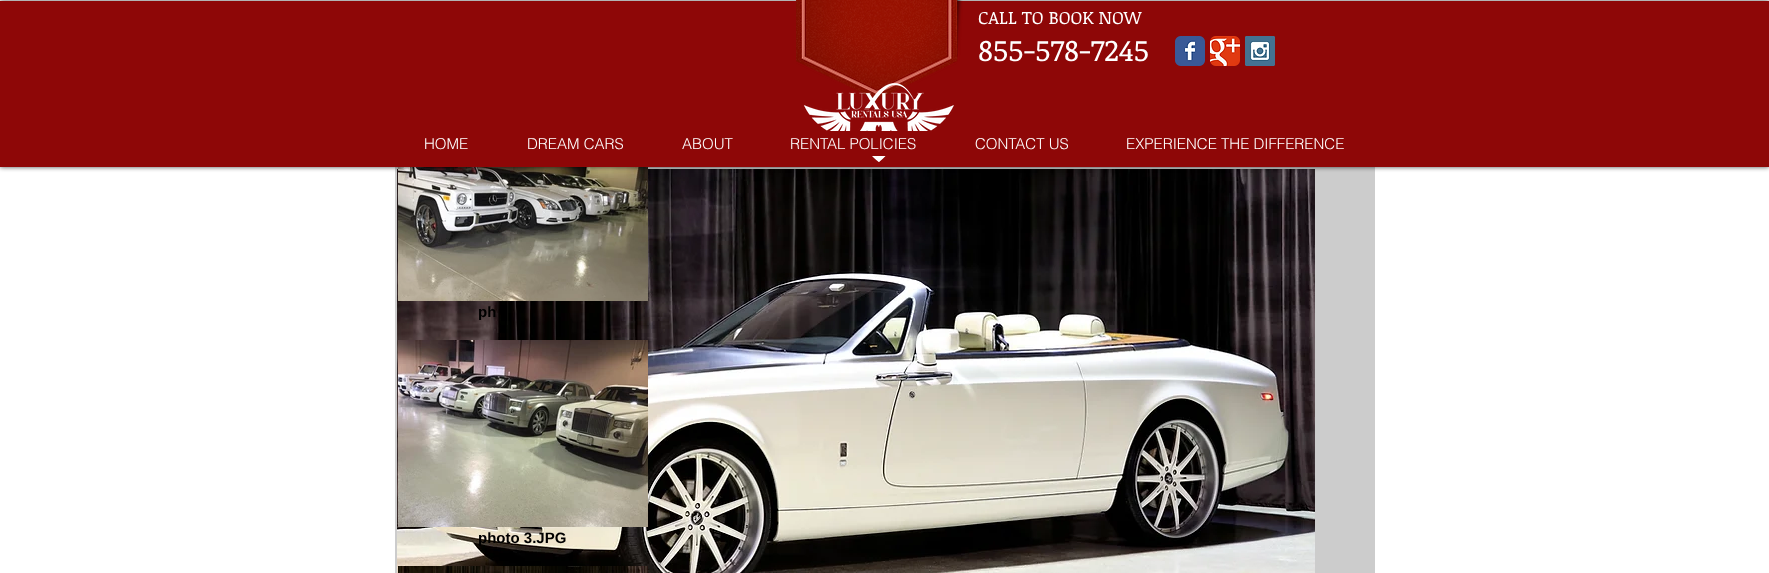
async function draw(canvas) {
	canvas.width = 1769;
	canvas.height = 573;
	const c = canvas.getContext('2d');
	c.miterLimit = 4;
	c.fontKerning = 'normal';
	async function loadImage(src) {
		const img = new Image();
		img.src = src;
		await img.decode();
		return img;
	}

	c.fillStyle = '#fff';
	c.fillRect(0, 0, 1769, 573);
	c.fillStyle = '#ccc';
	c.fillRect(395, 167, 980, 406);
	c.drawImage(await loadImage('img6.png'), 397, 169, 918, 404);
	c.drawImage(await loadImage('img7.png'), 398, 167, 250, 134);
	c.fillStyle = '#000000b3';
	c.filter = 'blur(2.5px)';
	c.beginPath();
	c.rect(0, 1, 1769, 166);
	c.fill();
	c.filter = 'none';
	c.fillStyle = '#8e0707';
	c.fillRect(0, 1, 1769, 166);
	c.drawImage(await loadImage('img1.png'), 796, 0, 167, 100);
	c.font = '18px Noticia Text';
	c.fillStyle = '#fff';
	c.fillText('CALL TO BOOK NOW', 978, 24);
	c.font = '30px Noticia Text';
	c.fillText('855-578-7245', 978, 61);
	c.drawImage(await loadImage('img2.png'), 1175, 36, 30, 30);
	c.drawImage(await loadImage('img3.png'), 1210, 36, 30, 30);
	c.drawImage(await loadImage('img4.png'), 1245, 36, 30, 30);
	c.drawImage(await loadImage('img5.png'), 803, 83, 151, 79);
	c.fillStyle = '#8e0707';
	c.fillRect(828, 131, 105, 25);
	c.font = '300 15px helvetica';
	c.fillStyle = '#fff';
	for (const [text, x, y] of [
		['HOME', 424, 149],
		['DREAM CARS', 527, 149],
		['ABOUT', 682, 149],
		['RENTAL POLICIES', 790, 149],
		['CONTACT US', 975, 149],
		['EXPERIENCE THE DIFFERENCE', 1126, 149],
	]) {
		c.fillText(text, x, y);
	}
	c.font = 'bold 15px Liberation Sans';
	c.fillStyle = '#000';
	c.fillText('ph', 478, 317);
	c.drawImage(await loadImage('img8.png'), 398, 340, 250, 187);
	c.fillText('photo 3.JPG', 478, 543);
	c.drawImage(await loadImage('img9.png'), 398, 566, 250, 7);
}

draw(document.querySelector('canvas'));
